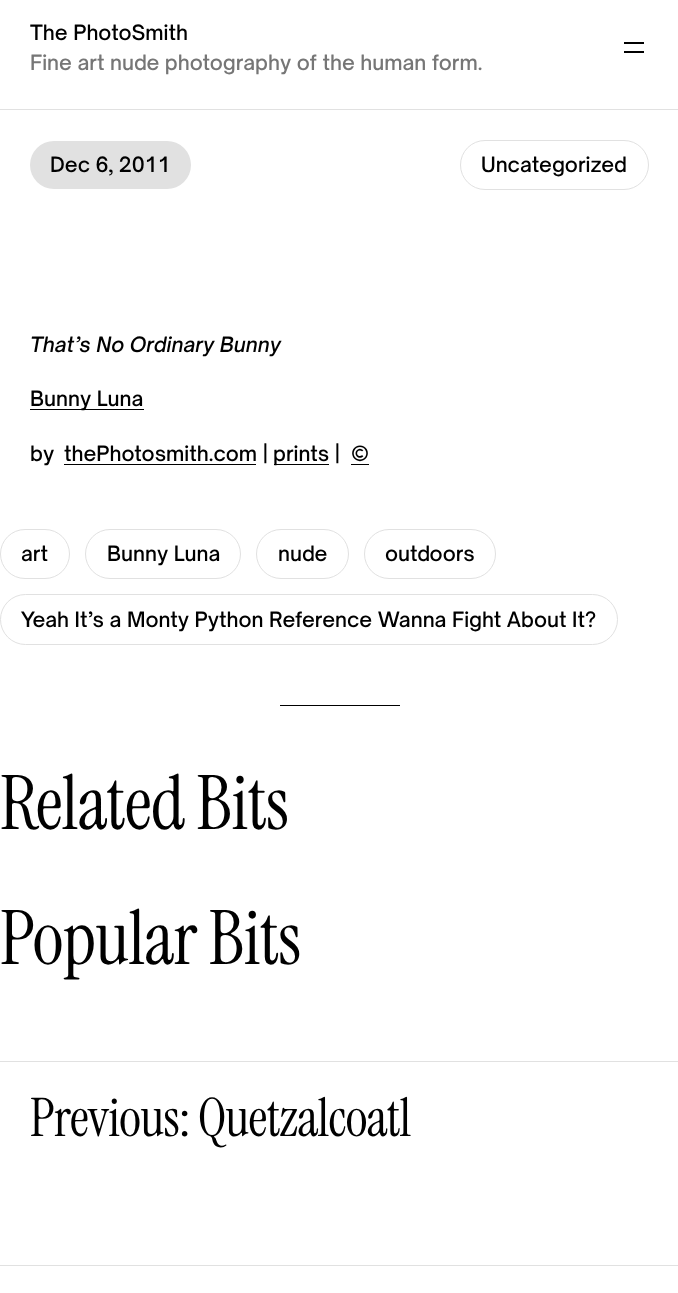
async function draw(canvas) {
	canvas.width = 678;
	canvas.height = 1293;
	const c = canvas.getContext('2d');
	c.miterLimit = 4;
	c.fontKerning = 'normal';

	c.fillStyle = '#fff';
	c.fillRect(0, 0, 678, 1293);
	c.fillStyle = '#e1e1e1';
	c.fillRect(0, 109, 678, 1);
	c.font = '500 20.25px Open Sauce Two';
	c.fillStyle = '#000';
	c.fillText('The PhotoSmith', 30, 40);
	c.fillStyle = '#767676';
	c.fillText('Fine art nude photography of the human form.', 30, 70);
	c.fillStyle = '#000';
	c.fillRect(624, 42, 20, 2);
	c.fillRect(624, 51, 20, 2);
	c.fillStyle = '#e1e1e1';
	c.beginPath();
	c.roundRect(30, 141, 161, 48, 24);
	c.fill();
	c.fillStyle = '#000';
	c.fillText('Dec 6, 2011', 50, 172);
	c.beginPath();
	c.roundRect(460.5, 140.5, 188, 49, 24.5);
	c.strokeStyle = '#e1e1e1';
	c.stroke();
	c.fillText('Uncategorized', 481, 172);
	c.font = 'italic 500 20.25px Open Sauce Two';
	c.fillText('That’s No Ordinary Bunny', 30, 352);
	c.fillRect(30, 409, 114, 1);
	c.font = '500 20.25px Open Sauce Two';
	for (const [text, x, y] of [
		['Bunny Luna', 30, 406],
		['by', 30, 461],
		['thePhotosmith.com', 64, 461],
	]) {
		c.fillText(text, x, y);
	}
	c.fillRect(64, 464, 192, 1);
	c.fillText('|', 262, 461);
	c.fillRect(274, 464, 55, 1);
	for (const [text, x, y] of [
		['prints', 273, 461],
		['|', 334, 461],
		['©', 351, 461],
	]) {
		c.fillText(text, x, y);
	}
	c.fillRect(351, 464, 18, 1);
	c.beginPath();
	c.roundRect(0.5, 529.5, 69, 49, 24.5);
	c.stroke();
	c.fillText('art', 21, 561);
	c.beginPath();
	c.roundRect(85.5, 529.5, 155, 49, 24.5);
	c.stroke();
	c.fillText('Bunny Luna', 107, 561);
	c.beginPath();
	c.roundRect(256.5, 529.5, 92, 49, 24.5);
	c.stroke();
	c.fillText('nude', 278, 561);
	c.beginPath();
	c.roundRect(364.5, 529.5, 131, 49, 24.5);
	c.stroke();
	c.fillText('outdoors', 385, 561);
	c.beginPath();
	c.roundRect(0.5, 594.5, 617, 50, 25);
	c.stroke();
	c.fillText('Yeah It’s a Monty Python Reference Wanna Fight About It?', 21, 627);
	c.fillRect(280, 705, 120, 1);
	c.letterSpacing = '-0.75px';
	c.font = '75px Instrument Serif';
	c.fillText('Related Bits', 0, 829);
	c.fillText('Popular Bits', 0, 964);
	c.fillStyle = '#e1e1e1';
	c.fillRect(0, 1061, 678, 1);
	c.font = '53px Instrument Serif';
	c.fillStyle = '#000';
	c.fillText('Previous: Quetzalcoatl', 30, 1136);
	c.fillStyle = '#e1e1e1';
	c.fillRect(0, 1265, 678, 1);
}

draw(document.querySelector('canvas'));
